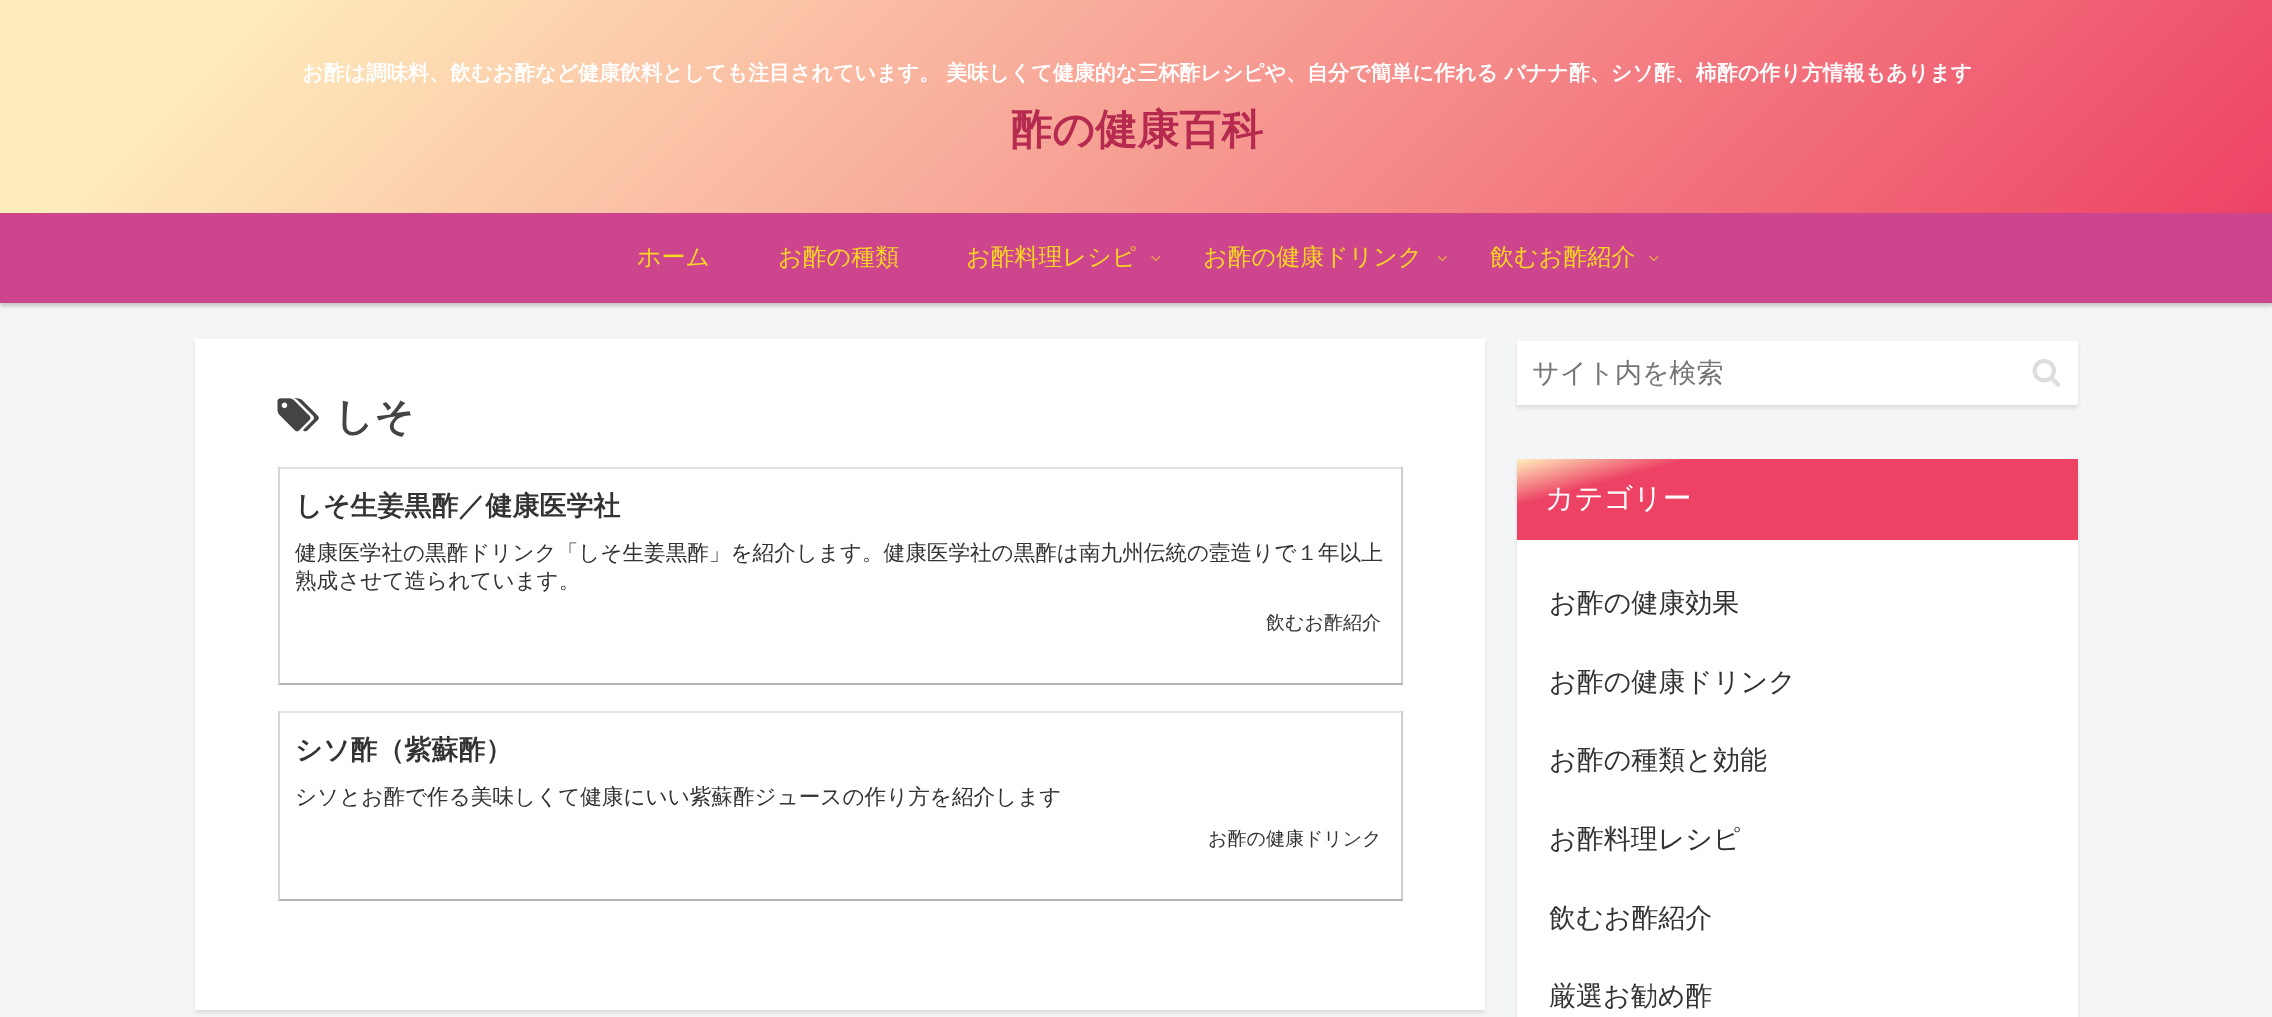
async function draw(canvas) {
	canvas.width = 2272;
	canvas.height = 1017;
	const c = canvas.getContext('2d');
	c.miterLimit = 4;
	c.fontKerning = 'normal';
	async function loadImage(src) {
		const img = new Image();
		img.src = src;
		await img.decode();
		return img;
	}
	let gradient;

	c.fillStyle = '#f4f5f7';
	c.fillRect(0, 0, 2272, 1017);
	c.fillStyle = '#0000001a';
	c.filter = 'blur(2px)';
	c.beginPath();
	c.rect(0, 3, 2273, 303);
	c.fill();
	c.filter = 'none';
	gradient = c.createLinearGradient(515, -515, 1758, 728);
	gradient.addColorStop(0.1, '#ffedbc');
	gradient.addColorStop(1, '#ed4264');
	c.fillStyle = gradient;
	c.fillRect(0, 0, 2272, 213);
	c.font = 'bold 21px WenQuanYi Zen Hei';
	c.fillStyle = '#fff';
	c.fillText('お酢は調味料、飲むお酢など健康飲料としても注目されています。 美味しくて健康的な三杯酢レシピや、自分で簡単に作れる バナナ酢、シソ酢、柿酢の作り方情報もあります', 302, 80);
	c.font = 'bold 42px WenQuanYi Zen Hei';
	c.fillStyle = '#b72a4f';
	c.fillText('酢の健康百科', 1010, 144);
	c.fillStyle = '#0000001a';
	c.filter = 'blur(2px)';
	c.beginPath();
	c.rect(0, 216, 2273, 90);
	c.fill();
	c.filter = 'none';
	c.fillStyle = '#cc458d';
	c.fillRect(0, 213, 2272, 90);
	c.font = '500 24px WenQuanYi Zen Hei';
	c.fillStyle = '#f9d622';
	for (const [text, x, y] of [
		['ホーム', 637, 265],
		['お酢の種類', 778, 265],
		['お酢料理レシピ', 966, 265],
	]) {
		c.fillText(text, x, y);
	}
	c.drawImage(await loadImage('img1.png'), 1151, 256, 10, 6);
	c.fillText('お酢の健康ドリンク', 1203, 265);
	c.drawImage(await loadImage('img2.png'), 1437, 256, 10, 6);
	c.fillText('飲むお酢紹介', 1490, 265);
	c.drawImage(await loadImage('img1.png'), 1649, 256, 10, 6);
	c.fillStyle = '#0000001a';
	c.filter = 'blur(2px)';
	c.beginPath();
	c.rect(195, 342, 1290, 671);
	c.fill();
	c.filter = 'none';
	c.fillStyle = '#fff';
	c.fillRect(195, 339, 1290, 671);
	c.drawImage(await loadImage('img3.png'), 277, 398, 42, 34);
	c.font = 'bold 39px WenQuanYi Zen Hei';
	c.fillStyle = '#444';
	c.fillText('しそ', 334, 430);
	for (const [x, y, w, h, color] of [
		[278, 467, 1125, 2, '#e3e3e3'],
		[1401, 467, 2, 217, '#cecece'],
		[278, 683, 1125, 2, '#b4b4b4'],
		[278, 467, 2, 217, '#d6d6d6'],
	]) {
		c.fillStyle = color;
		c.fillRect(x, y, w, h);
	}
	c.font = 'bold 27px WenQuanYi Zen Hei';
	c.fillStyle = '#333';
	c.fillText('しそ生姜黒酢／健康医学社', 295, 515);
	c.font = '500 21.6px WenQuanYi Zen Hei';
	c.fillText('健康医学社の黒酢ドリンク「しそ生姜黒酢」を紹介します。健康医学社の黒酢は南九州伝統の壼造りで１年以上', 295, 560);
	c.save();
	c.beginPath();
	c.rect(296, 539, 1087, 57);
	c.clip();
	c.fillText('熟成させて造られています。', 295, 588);
	c.restore();
	c.font = '500 19px WenQuanYi Zen Hei';
	c.fillText('飲むお酢紹介', 1266, 629);
	for (const [x, y, w, h, color] of [
		[278, 711, 1125, 2, '#e3e3e3'],
		[1401, 711, 2, 189, '#cecece'],
		[278, 899, 1125, 2, '#b4b4b4'],
		[278, 711, 2, 189, '#d6d6d6'],
	]) {
		c.fillStyle = color;
		c.fillRect(x, y, w, h);
	}
	c.font = 'bold 27px WenQuanYi Zen Hei';
	c.fillStyle = '#333';
	c.fillText('シソ酢（紫蘇酢）', 295, 759);
	c.font = '500 21.6px WenQuanYi Zen Hei';
	c.fillText('シソとお酢で作る美味しくて健康にいい紫蘇酢ジュースの作り方を紹介します', 295, 804);
	c.font = '500 19px WenQuanYi Zen Hei';
	c.fillText('お酢の健康ドリンク', 1208, 845);
	c.fillStyle = '#0000001a';
	c.filter = 'blur(2px)';
	c.beginPath();
	c.rect(1517, 344, 561, 64);
	c.fill();
	c.filter = 'none';
	c.fillStyle = '#fff';
	c.fillRect(1517, 341, 561, 64);
	c.font = '500 27px WenQuanYi Zen Hei';
	c.fillStyle = '#757575';
	c.fillText('サイト内を検索', 1532, 382);
	c.drawImage(await loadImage('img4.png'), 2032, 359, 29, 28);
	c.fillStyle = '#0000001a';
	c.filter = 'blur(2px)';
	c.beginPath();
	c.rect(1517, 462, 561, 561);
	c.fill();
	c.filter = 'none';
	c.fillStyle = '#fff';
	c.fillRect(1517, 540, 561, 477);
	gradient = c.createLinearGradient(1768, 392, 1826, 607);
	gradient.addColorStop(0, '#ffedbc');
	gradient.addColorStop(0.2, '#ed4264');
	c.fillStyle = gradient;
	c.fillRect(1517, 459, 561, 81);
	c.font = '500 28.75px WenQuanYi Zen Hei';
	c.fillStyle = '#fff';
	c.fillText('カテゴリー', 1545, 508);
	c.font = '500 27px WenQuanYi Zen Hei';
	c.fillStyle = '#333';
	for (const [text, x, y] of [
		['お酢の健康効果', 1549, 612],
		['お酢の健康ドリンク', 1549, 691],
		['お酢の種類と効能', 1549, 769],
		['お酢料理レシピ', 1549, 848],
		['飲むお酢紹介', 1549, 927],
		['厳選お勧め酢', 1549, 1005],
	]) {
		c.fillText(text, x, y);
	}
}

draw(document.querySelector('canvas'));
